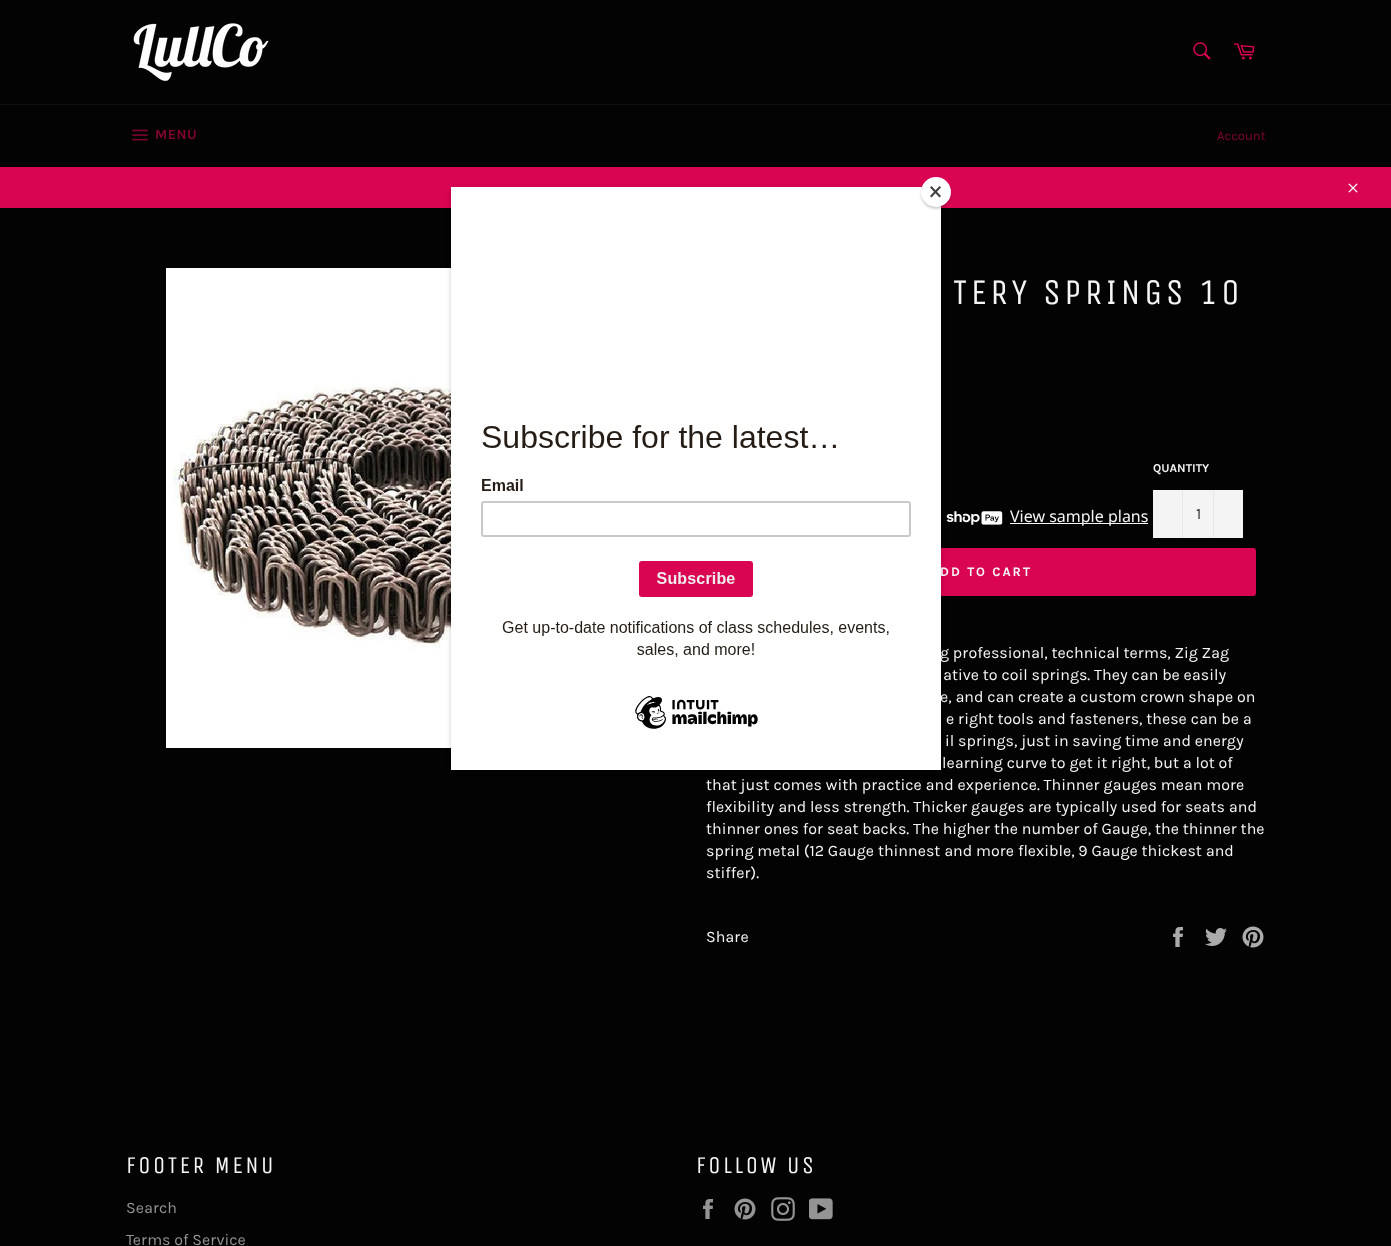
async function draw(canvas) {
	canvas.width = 1391;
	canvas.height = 1246;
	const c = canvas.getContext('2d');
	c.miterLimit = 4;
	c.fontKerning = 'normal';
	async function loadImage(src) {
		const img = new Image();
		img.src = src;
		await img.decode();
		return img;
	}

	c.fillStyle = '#030303';
	c.fillRect(0, 0, 1391, 1246);
	c.drawImage(await loadImage('img1.png'), 133, 23, 136, 58);
	c.drawImage(await loadImage('img2.png'), 1193, 42, 18, 18);
	c.drawImage(await loadImage('img3.png'), 1233, 43, 22, 17);
	c.fillStyle = '#101010';
	c.fillRect(0, 104, 1391, 1);
	c.drawImage(await loadImage('img4.png'), 132, 129, 16, 12);
	c.letterSpacing = '0.5px';
	c.font = 'bold 14px Karla';
	c.fillStyle = '#830432';
	c.fillText('MENU', 155, 139);
	c.letterSpacing = '0px';
	c.font = '13px Karla';
	c.fillText('Account', 1217, 140);
	c.fillStyle = '#d90452';
	c.fillRect(0, 167, 1391, 41);
	c.drawImage(await loadImage('img5.png'), 1348, 183, 10, 10);
	c.drawImage(await loadImage('img7.png'), 166, 268, 285, 480);
	c.drawImage(await loadImage('img8.png'), 946, 511, 57, 14);
	c.beginPath();
	c.roundRect(706, 548, 550, 48, 3);
	c.fill();
	c.fillStyle = '#00000033';
	c.filter = 'blur(2px)';
	c.beginPath();
	c.rect(451, 189, 490, 583);
	c.fill();
	c.filter = 'none';
	c.font = '16px Karla';
	c.fillStyle = '#f5f5f5';
	c.fillText('g professional, technical terms, Zig Zag', 940, 658);
	c.fillText('e, and can create a custom crown shape on', 940, 702);
	c.drawImage(await loadImage('img6.png'), 451, 187, 490, 583);
	c.fillStyle = '#00000033';
	c.filter = 'blur(1px)';
	c.beginPath();
	c.roundRect(921, 179, 30, 30, 15);
	c.fill();
	c.filter = 'none';
	c.fillStyle = '#fff';
	c.beginPath();
	c.arc(936, 192, 15, 0, 2 * Math.PI);
	c.fill();
	c.fillStyle = '#414141';
	c.beginPath();
	c.moveTo(939.5, 186);
	c.lineTo(941, 187.5);
	c.lineTo(931.5, 197.5);
	c.lineTo(930, 196);
	c.closePath();
	c.fill();
	c.beginPath();
	c.moveTo(930, 187.5);
	c.lineTo(931.5, 186);
	c.lineTo(941, 196);
	c.lineTo(939.5, 197.5);
	c.closePath();
	c.fill();
	c.letterSpacing = '3.6px';
	c.font = '36px Unica One';
	c.fillStyle = '#f5f5f5';
	c.fillText('TERY SPRINGS 10', 953, 304);
	c.fillRect(1010, 523, 138, 1);
	c.letterSpacing = '0px';
	c.font = '16px Noto Sans';
	c.fillText('View sample plans', 1010, 522);
	c.font = 'bold 12px Karla';
	c.fillText('QUANTITY', 1153, 472);
	c.fillStyle = '#f4f4f4';
	c.fillRect(1153, 490, 90, 48);
	c.fillStyle = '#e7e7e7';
	c.fillRect(1182, 490, 1, 48);
	c.font = '16px Karla';
	c.fillStyle = '#333';
	c.fillText('1', 1196, 519);
	c.fillStyle = '#e7e7e7';
	c.fillRect(1213, 490, 1, 48);
	c.letterSpacing = '2px';
	c.font = 'bold 13px Karla';
	c.fillStyle = '#f5f5f5';
	c.fillText('DD TO CART', 940, 576);
	c.letterSpacing = '0px';
	c.font = '16px Karla';
	for (const [text, x, y] of [
		['ative to coil springs. They can be easily', 943, 680],
		['e right tools and fasteners, these can be a', 946, 724],
		['il springs, just in saving time and energy', 945, 746],
		['learning curve to get it right, but a lot of', 942, 768],
		['that just comes with practice and experience. Thinner gauges mean more', 706, 790],
		['flexibility and less strength. Thicker gauges are typically used for seats and', 706, 812],
		['thinner ones for seat backs. The higher the number of Gauge, the thinner the', 706, 834],
		['spring metal (12 Gauge thinnest and more flexible, 9 Gauge thickest and', 706, 856],
		['stiffer).', 706, 878],
		['Share', 706, 942],
	]) {
		c.fillText(text, x, y);
	}
	c.drawImage(await loadImage('img9.png'), 1173, 927, 10, 20);
	c.drawImage(await loadImage('img10.png'), 1205, 928, 22, 18);
	c.drawImage(await loadImage('img11.png'), 1242, 926, 22, 22);
	c.letterSpacing = '2.4px';
	c.font = '24px Unica One';
	c.fillText('FOOTER MENU', 126, 1173);
	c.letterSpacing = '0px';
	c.font = '16px Karla';
	c.fillStyle = '#949494';
	c.fillText('Search', 126, 1213);
	c.fillText('Terms of Service', 126, 1245);
	c.letterSpacing = '2.4px';
	c.font = '24px Unica One';
	c.fillStyle = '#f5f5f5';
	c.fillText('FOLLOW US', 696, 1173);
	c.drawImage(await loadImage('img12.png'), 703, 1199, 10, 20);
	c.drawImage(await loadImage('img13.png'), 734, 1198, 22, 22);
	c.drawImage(await loadImage('img14.png'), 771, 1197, 24, 24);
	c.drawImage(await loadImage('img15.png'), 809, 1198, 24, 22);
}

draw(document.querySelector('canvas'));
